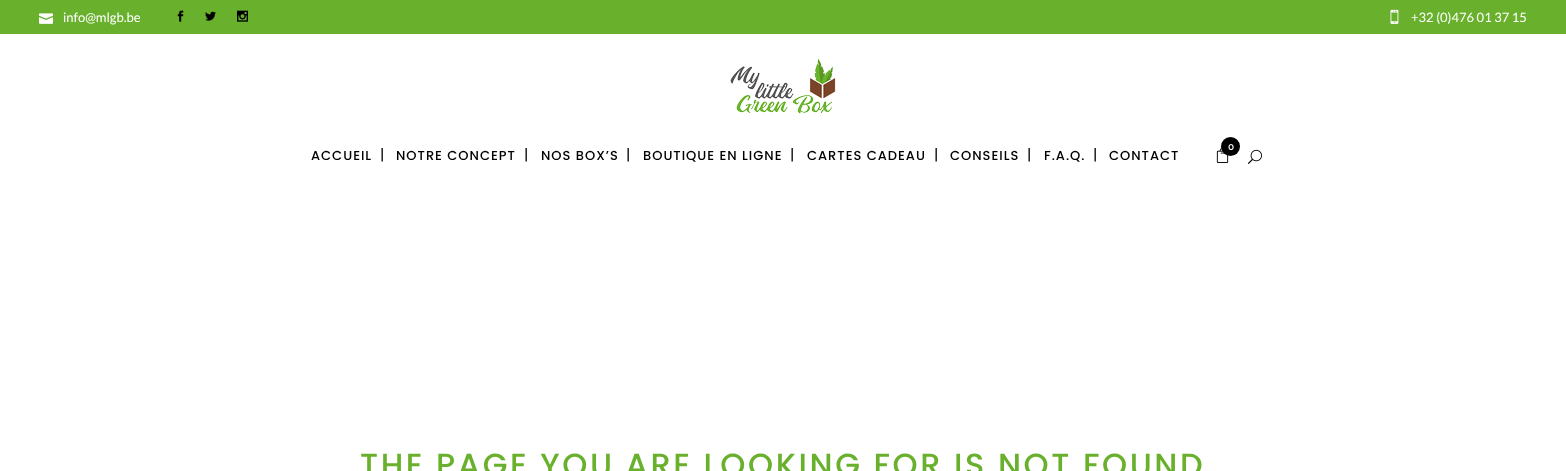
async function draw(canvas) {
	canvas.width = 1566;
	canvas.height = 471;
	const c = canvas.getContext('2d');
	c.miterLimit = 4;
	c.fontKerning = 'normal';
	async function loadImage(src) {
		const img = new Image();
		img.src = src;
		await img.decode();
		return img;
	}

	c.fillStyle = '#fff';
	c.fillRect(0, 0, 1566, 471);
	c.fillStyle = '#69b02d';
	c.fillRect(0, 0, 1566, 34);
	c.drawImage(await loadImage('img1.png'), 39, 13, 14, 11);
	c.font = '13px Lato';
	c.fillStyle = '#fff';
	c.fillText('info@mlgb.be', 63, 22);
	c.drawImage(await loadImage('img2.png'), 177, 10, 7, 12);
	c.drawImage(await loadImage('img3.png'), 205, 11, 11, 10);
	c.drawImage(await loadImage('img4.png'), 237, 10, 11, 12);
	c.drawImage(await loadImage('img5.png'), 1390, 9, 9, 15);
	c.fillText('+32 (0)476 01 37 15', 1411, 22);
	c.drawImage(await loadImage('img6.png'), 730, 58, 106, 56);
	c.letterSpacing = '1px';
	c.font = '500 13px Poppins';
	c.fillStyle = '#000';
	c.fillText('ACCUEIL', 311, 160);
	c.letterSpacing = '0px';
	c.font = '15px Poppins';
	c.fillText('|', 380, 160);
	c.letterSpacing = '1px';
	c.font = '500 13px Poppins';
	c.fillText('NOTRE CONCEPT', 396, 160);
	c.letterSpacing = '0px';
	c.font = '15px Poppins';
	c.fillText('|', 524, 160);
	c.letterSpacing = '1px';
	c.font = '500 13px Poppins';
	c.fillText('NOS BOX’S', 541, 160);
	c.letterSpacing = '0px';
	c.font = '15px Poppins';
	c.fillText('|', 626, 160);
	c.letterSpacing = '1px';
	c.font = '500 13px Poppins';
	c.fillText('BOUTIQUE EN LIGNE', 643, 160);
	c.letterSpacing = '0px';
	c.font = '15px Poppins';
	c.fillText('|', 790, 160);
	c.letterSpacing = '1px';
	c.font = '500 13px Poppins';
	c.fillText('CARTES CADEAU', 807, 160);
	c.letterSpacing = '0px';
	c.font = '15px Poppins';
	c.fillText('|', 934, 160);
	c.letterSpacing = '1px';
	c.font = '500 13px Poppins';
	c.fillText('CONSEILS', 950, 160);
	c.letterSpacing = '0px';
	c.font = '15px Poppins';
	c.fillText('|', 1027, 160);
	c.letterSpacing = '1px';
	c.font = '500 13px Poppins';
	c.fillText('F.A.Q.', 1044, 160);
	c.letterSpacing = '0px';
	c.font = '15px Poppins';
	c.fillText('|', 1093, 160);
	c.letterSpacing = '1px';
	c.font = '500 13px Poppins';
	c.fillText('CONTACT', 1109, 160);
	c.drawImage(await loadImage('img7.png'), 1216, 148, 13, 15);
	c.beginPath();
	c.arc(1230.5, 146.5, 9.5, 0, 2 * Math.PI);
	c.fill();
	c.letterSpacing = '0px';
	c.font = '600 10px Raleway';
	c.fillStyle = '#fff';
	c.fillText('0', 1228, 150);
	c.drawImage(await loadImage('img8.png'), 1248, 149, 14, 15);
	c.letterSpacing = '2.6px';
	c.font = '500 32px Poppins';
	c.fillStyle = '#69b02d';
	c.fillText('THE PAGE YOU ARE LOOKING FOR IS NOT FOUND', 360, 476);
}

draw(document.querySelector('canvas'));
